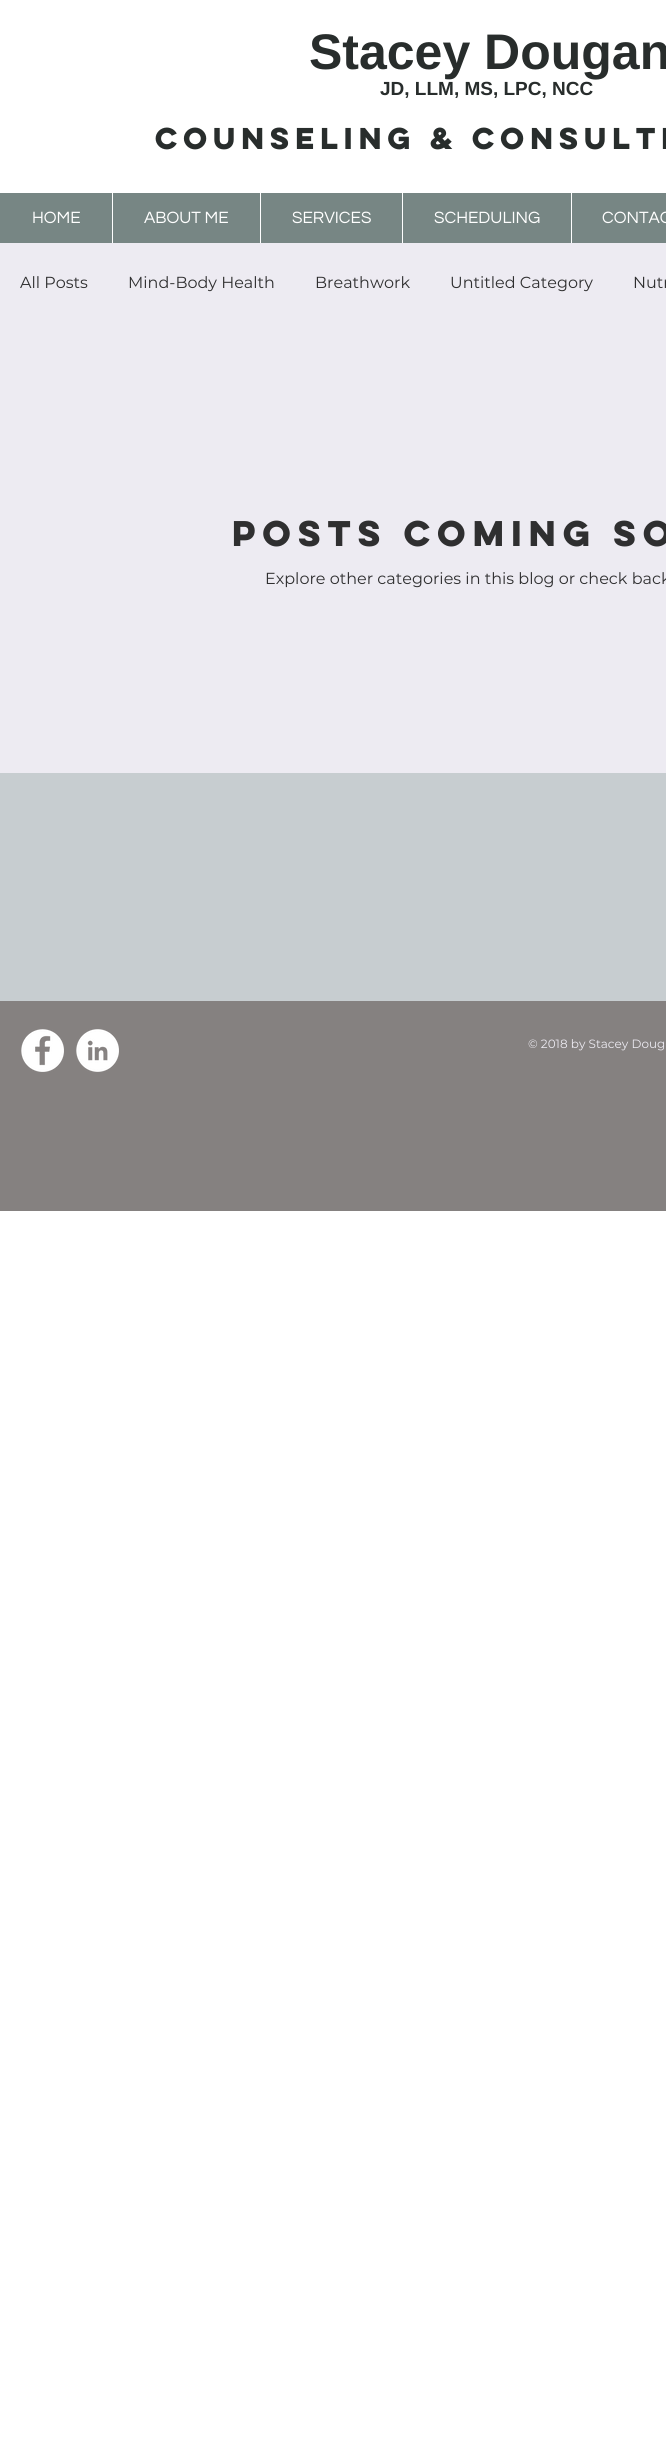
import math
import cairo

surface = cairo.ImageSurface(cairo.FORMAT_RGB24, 666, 2449)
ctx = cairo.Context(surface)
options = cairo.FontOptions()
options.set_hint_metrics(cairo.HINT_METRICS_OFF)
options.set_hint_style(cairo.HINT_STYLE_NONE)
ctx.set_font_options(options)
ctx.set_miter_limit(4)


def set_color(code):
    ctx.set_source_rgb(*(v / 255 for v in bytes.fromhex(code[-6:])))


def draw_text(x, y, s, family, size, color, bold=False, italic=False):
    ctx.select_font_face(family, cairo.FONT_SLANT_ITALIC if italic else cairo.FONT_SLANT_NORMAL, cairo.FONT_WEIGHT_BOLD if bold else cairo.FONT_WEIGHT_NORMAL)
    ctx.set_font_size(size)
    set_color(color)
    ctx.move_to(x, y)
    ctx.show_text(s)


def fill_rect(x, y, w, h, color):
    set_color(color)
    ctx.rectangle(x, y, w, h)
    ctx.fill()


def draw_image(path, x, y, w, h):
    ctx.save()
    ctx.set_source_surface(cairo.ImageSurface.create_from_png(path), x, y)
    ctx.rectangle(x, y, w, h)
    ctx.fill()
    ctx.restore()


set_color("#ffffff")
ctx.paint()
draw_text(309, 69, "Stacey Dougan", "Liberation Sans", 50, "#282d2c", bold=True)
draw_text(380, 95, "JD, LLM, MS, LPC, NCC", "Liberation Sans", 19, "#282d2c", bold=True)
draw_text(155, 149, "Counseling & Consulti", "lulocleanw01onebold", 27, "#282d2c", bold=True)
fill_rect(0, 193, 666, 50, "#778684")
draw_text(32, 223, "HOME", "Questrial", 17, "#ffffff")
fill_rect(112, 193, 1, 50, "#ffffff")
draw_text(144, 223, "ABOUT ME", "Questrial", 17, "#ffffff")
fill_rect(260, 193, 1, 50, "#ffffff")
draw_text(292, 223, "SERVICES", "Questrial", 17, "#ffffff")
fill_rect(402, 193, 1, 50, "#ffffff")
draw_text(434, 223, "SCHEDULING", "Questrial", 17, "#ffffff")
fill_rect(571, 193, 1, 50, "#ffffff")
draw_text(602, 223, "CONTAC", "Questrial", 17, "#ffffff")
fill_rect(0, 243, 666, 530, "#edebf2")
draw_text(20, 288, "All Posts", "Montserrat", 16, "#2f2f30")
draw_text(128, 288, "Mind-Body Health", "Montserrat", 16, "#2f2f30")
draw_text(315, 288, "Breathwork", "Montserrat", 16, "#2f2f30")
draw_text(450, 288, "Untitled Category", "Montserrat", 16, "#2f2f30")
draw_text(633, 288, "Nutr", "Montserrat", 16, "#2f2f30")
draw_text(232, 546, "Posts Coming So", "lulocleanw01onebold", 32, "#2f2f30", bold=True)
draw_text(265, 584, "Explore other categories in this blog or check back", "Montserrat", 16, "#2f2f30")
fill_rect(0, 773, 666, 228, "#c7cdd0")
fill_rect(0, 1001, 666, 210, "#858180")
draw_image("assets/img1.png", 21, 1029, 43, 43)
draw_image("assets/img2.png", 76, 1029, 43, 43)
draw_text(528, 1048, "© 2018 by Stacey Doug", "Montserrat", 12, "#edebf2")
surface.write_to_png("output.png")
